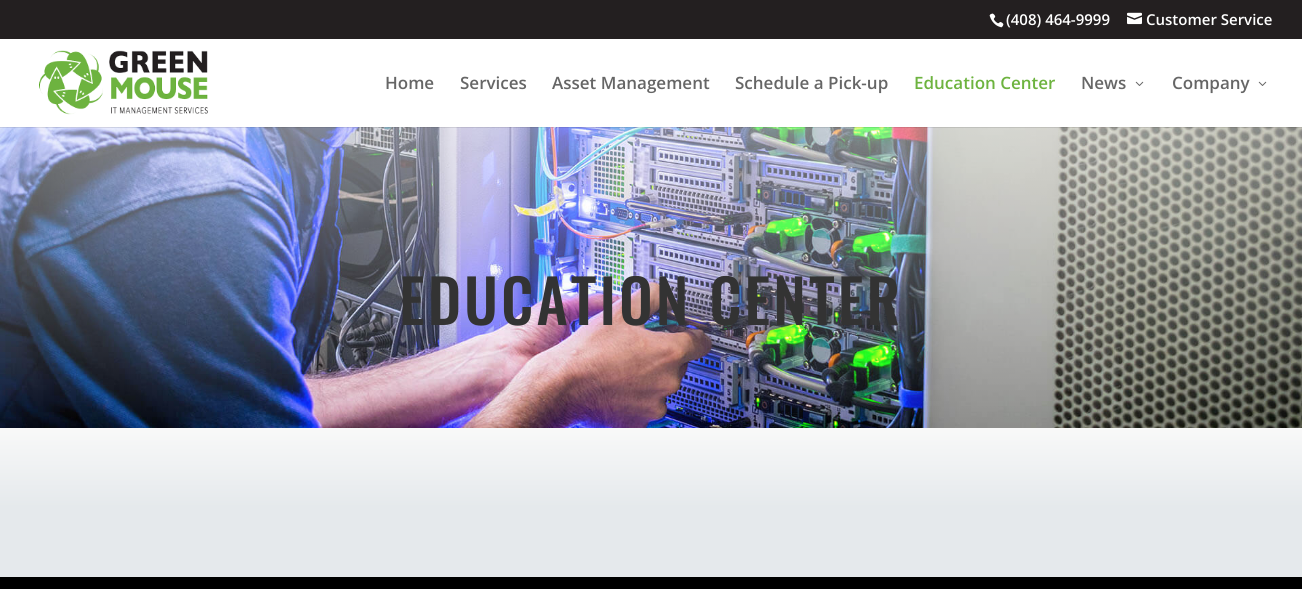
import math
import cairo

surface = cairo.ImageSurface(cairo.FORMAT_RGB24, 1302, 589)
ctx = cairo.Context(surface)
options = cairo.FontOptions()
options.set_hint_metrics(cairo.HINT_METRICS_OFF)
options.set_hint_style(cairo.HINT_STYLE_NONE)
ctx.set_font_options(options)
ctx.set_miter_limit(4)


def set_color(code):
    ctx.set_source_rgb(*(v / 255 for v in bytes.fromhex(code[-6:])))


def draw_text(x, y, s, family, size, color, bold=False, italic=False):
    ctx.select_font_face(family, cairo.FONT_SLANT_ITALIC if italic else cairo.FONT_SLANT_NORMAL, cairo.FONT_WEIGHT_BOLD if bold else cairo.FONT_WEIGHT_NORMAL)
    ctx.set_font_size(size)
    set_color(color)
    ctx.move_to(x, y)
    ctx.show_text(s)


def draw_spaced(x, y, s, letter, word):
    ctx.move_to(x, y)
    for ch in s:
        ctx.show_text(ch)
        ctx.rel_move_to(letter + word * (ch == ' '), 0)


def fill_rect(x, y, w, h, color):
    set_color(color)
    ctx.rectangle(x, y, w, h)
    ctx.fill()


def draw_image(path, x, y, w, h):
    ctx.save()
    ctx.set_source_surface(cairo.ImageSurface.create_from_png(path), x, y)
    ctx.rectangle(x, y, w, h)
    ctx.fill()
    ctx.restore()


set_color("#ffffff")
ctx.paint()
fill_rect(0, 0, 1302, 39, "#231f20")
draw_image("assets/img1.png", 989, 13, 15, 15)
draw_text(1006, 25, "(408) 464-9999", "Open Sans SemiBold", 15, "#ffffff")
draw_image("assets/img2.png", 1127, 12, 15, 13)
draw_text(1146, 25, "Customer Service", "Open Sans SemiBold", 15, "#ffffff")
draw_image("assets/img5.png", 0, 127, 1302, 301)
ctx.set_source_rgba(0, 0, 0, 0.1)
ctx.rectangle(0, 127, 1302, 1)
ctx.fill()
draw_image("assets/img3.png", 39, 50, 169, 65)
draw_text(385, 89, "Home", "Open Sans SemiBold", 17, "#666666")
draw_text(460, 89, "Services", "Open Sans SemiBold", 17, "#666666")
draw_text(552, 89, "Asset Management", "Open Sans SemiBold", 17, "#666666")
draw_text(735, 89, "Schedule a Pick-up", "Open Sans SemiBold", 17, "#666666")
draw_text(914, 89, "Education Center", "Open Sans SemiBold", 17, "#6db33f")
draw_text(1081, 89, "News", "Open Sans SemiBold", 17, "#666666")
draw_image("assets/img4.png", 1135, 81, 9, 5)
draw_text(1172, 89, "Company", "Open Sans SemiBold", 17, "#666666")
draw_image("assets/img4.png", 1258, 81, 9, 5)
ctx.select_font_face("Oswald Medium")
ctx.set_font_size(60)
set_color("#333333")
draw_spaced(399, 325, "EDUCATION CENTER", 3, 0)
gradient = cairo.LinearGradient(651, 428, 651, 577)
gradient.add_color_stop_rgba(0, 0.976, 0.976, 0.976, 1)
gradient.add_color_stop_rgba(0.53, 0.898, 0.914, 0.925, 1)
ctx.set_source(gradient)
ctx.rectangle(0, 428, 1302, 149)
ctx.fill()
fill_rect(0, 577, 1302, 12, "#000000")
surface.write_to_png("output.png")
